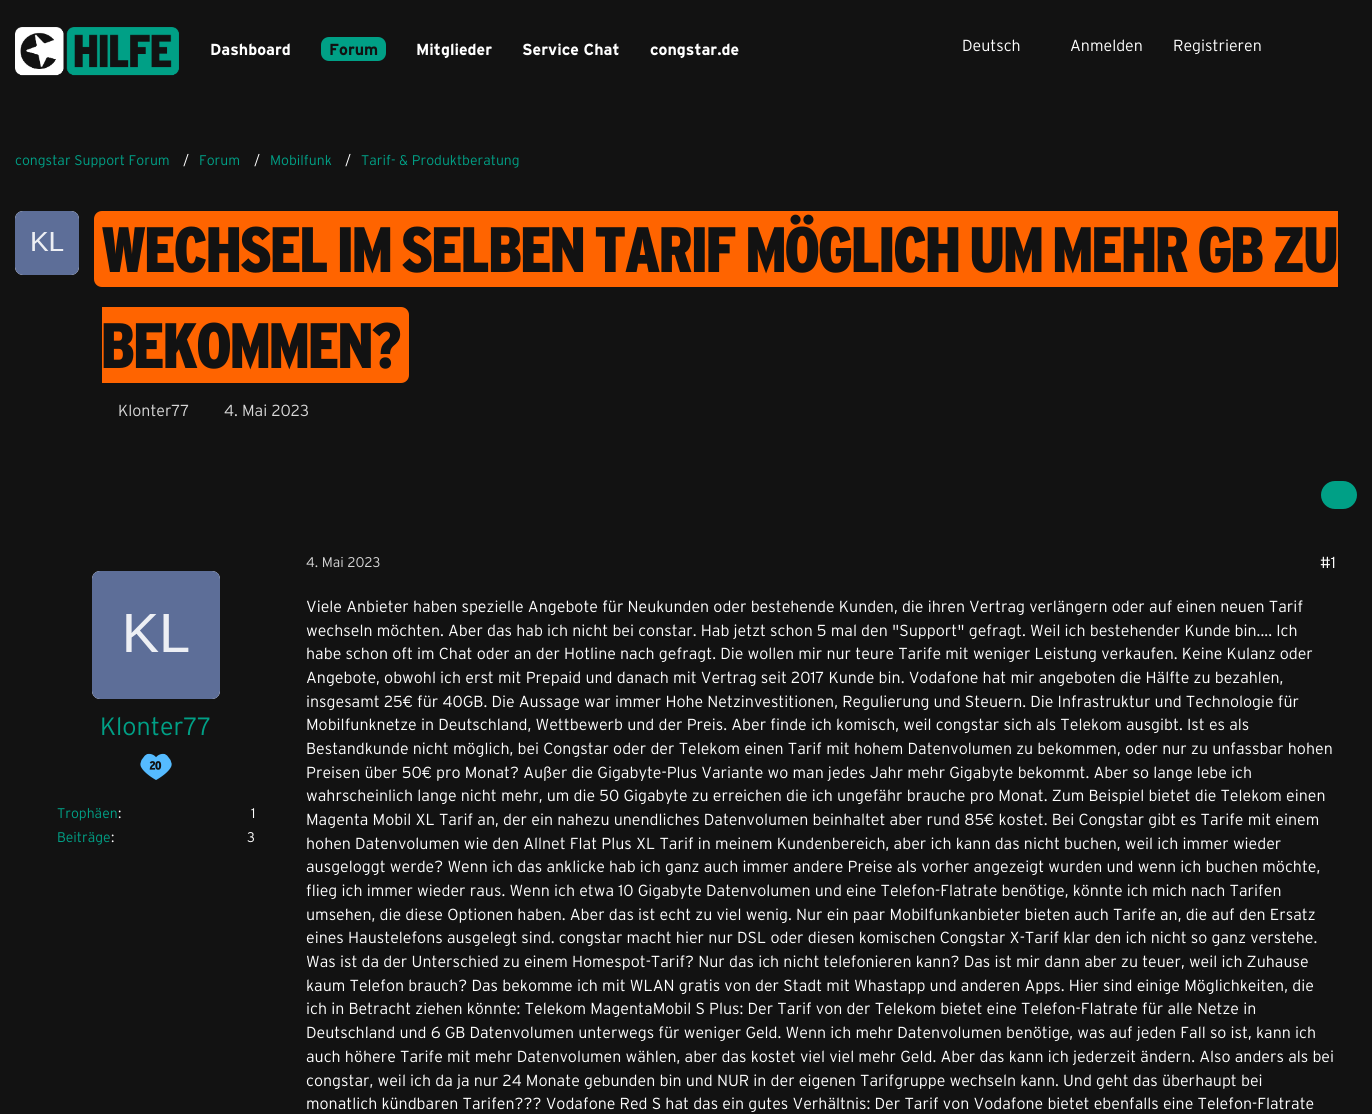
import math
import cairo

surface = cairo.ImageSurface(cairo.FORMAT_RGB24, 1372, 1114)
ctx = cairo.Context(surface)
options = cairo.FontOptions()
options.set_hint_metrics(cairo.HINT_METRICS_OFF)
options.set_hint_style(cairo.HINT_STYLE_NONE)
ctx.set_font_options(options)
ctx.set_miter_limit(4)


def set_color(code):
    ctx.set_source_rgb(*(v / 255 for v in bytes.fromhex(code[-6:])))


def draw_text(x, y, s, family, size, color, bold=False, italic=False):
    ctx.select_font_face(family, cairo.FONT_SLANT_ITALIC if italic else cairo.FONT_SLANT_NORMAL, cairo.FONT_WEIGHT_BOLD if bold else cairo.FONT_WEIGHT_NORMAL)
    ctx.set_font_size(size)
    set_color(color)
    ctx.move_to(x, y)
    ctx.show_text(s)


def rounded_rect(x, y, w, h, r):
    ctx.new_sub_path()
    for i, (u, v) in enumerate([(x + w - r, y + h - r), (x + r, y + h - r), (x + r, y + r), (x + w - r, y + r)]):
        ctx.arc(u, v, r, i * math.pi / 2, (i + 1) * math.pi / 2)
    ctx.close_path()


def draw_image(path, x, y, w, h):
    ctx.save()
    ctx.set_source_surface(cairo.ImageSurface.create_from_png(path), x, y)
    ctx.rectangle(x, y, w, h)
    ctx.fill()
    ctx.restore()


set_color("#121212")
ctx.paint()
draw_image("assets/img1.png", 15, 27, 164, 49)
draw_text(210, 55, "Dashboard", "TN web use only", 16, "#ffffff", bold=True)
set_color("#00a086")
rounded_rect(321, 37, 65, 24, 8)
ctx.fill()
draw_text(329, 55, "Forum", "TN web use only", 16, "#121212", bold=True)
draw_text(416, 55, "Mitglieder", "TN web use only", 16, "#ffffff", bold=True)
draw_text(522, 55, "Service Chat", "TN web use only", 16, "#ffffff", bold=True)
draw_text(650, 55, "congstar.de", "TN web use only", 16, "#ffffff", bold=True)
draw_text(962, 51, "Deutsch", "TN web use only Light", 16, "#ffffff")
draw_text(1070, 51, "Anmelden", "TN web use only Light", 16, "#ffffff")
draw_text(1173, 51, "Registrieren", "TN web use only Light", 16, "#ffffff")
draw_text(15, 165, "congstar Support Forum", "TN web use only Light", 14, "#00a086")
draw_text(183, 165, "/", "TN web use only Light", 14, "#ffffff")
draw_text(199, 165, "Forum", "TN web use only Light", 14, "#00a086")
draw_text(254, 165, "/", "TN web use only Light", 14, "#ffffff")
draw_text(270, 165, "Mobilfunk", "TN web use only Light", 14, "#00a086")
draw_text(345, 165, "/", "TN web use only Light", 14, "#ffffff")
draw_text(361, 165, "Tarif- & Produktberatung", "TN web use only Light", 14, "#00a086")
set_color("#ffffff")
rounded_rect(15, 211, 64, 64, 8)
ctx.fill()
draw_image("assets/img2.png", 15, 211, 64, 64)
set_color("#ff6400")
ctx.new_path()
ctx.move_to(102, 211)
ctx.line_to(1338, 211)
ctx.line_to(1338, 287)
ctx.line_to(102, 287)
ctx.curve_to(97.5, 287, 94, 283.5, 94, 279)
ctx.line_to(94, 219)
ctx.curve_to(94, 214.5, 97.5, 211, 102, 211)
ctx.close_path()
ctx.fill()
draw_text(102, 272, "WECHSEL IM SELBEN TARIF MÖGLICH UM MEHR GB ZU", "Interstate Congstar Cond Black", 64, "#121212")
set_color("#ff6400")
ctx.new_path()
ctx.move_to(102, 307)
ctx.line_to(401, 307)
ctx.curve_to(405.5, 307, 409, 310.5, 409, 315)
ctx.line_to(409, 375)
ctx.curve_to(409, 379.5, 405.5, 383, 401, 383)
ctx.line_to(102, 383)
ctx.close_path()
ctx.fill()
draw_text(102, 368, "BEKOMMEN?", "Interstate Congstar Cond Black", 64, "#121212")
draw_text(118, 416, "Klonter77", "TN web use only Light", 16, "#d8d8d8")
draw_text(224, 416, "4. Mai 2023", "TN web use only Light", 16, "#d8d8d8")
set_color("#00a086")
rounded_rect(1321, 481, 36, 28, 14)
ctx.fill()
set_color("#ffffff")
rounded_rect(92, 571, 128, 128, 8)
ctx.fill()
draw_image("assets/img3.png", 92, 571, 128, 128)
draw_text(100, 735, "Klonter77", "TN web use only Light", 25, "#00a086")
draw_image("assets/img4.png", 140, 753, 32, 27)
draw_text(57, 818, "Trophäen", "TN web use only Light", 14, "#00a086")
draw_text(118, 818, ":", "TN web use only Light", 14, "#ffffff")
draw_text(251, 818, "1", "TN web use only Light", 14, "#ffffff")
draw_text(57, 842, "Beiträge", "TN web use only Light", 14, "#00a086")
draw_text(111, 842, ":", "TN web use only Light", 14, "#ffffff")
draw_text(247, 842, "3", "TN web use only Light", 14, "#ffffff")
draw_text(306, 567, "4. Mai 2023", "TN web use only Light", 14, "#d8d8d8")
draw_text(1320, 568, "#1", "TN web use only Light", 16, "#ffffff")
draw_text(306, 612, "Viele Anbieter haben spezielle Angebote für Neukunden oder bestehende Kunden, die ihren Vertrag verlängern oder auf einen neuen Tarif", "TN web use only Light", 16, "#ffffff")
draw_text(306, 636, "wechseln möchten. Aber das hab ich nicht bei constar. Hab jetzt schon 5 mal den \"Support\" gefragt. Weil ich bestehender Kunde bin.... Ich", "TN web use only Light", 16, "#ffffff")
draw_text(306, 659, "habe schon oft im Chat oder an der Hotline nach gefragt. Die wollen mir nur teure Tarife mit weniger Leistung verkaufen. Keine Kulanz oder", "TN web use only Light", 16, "#ffffff")
draw_text(306, 683, "Angebote, obwohl ich erst mit Prepaid und danach mit Vertrag seit 2017 Kunde bin. Vodafone hat mir angeboten die Hälfte zu bezahlen,", "TN web use only Light", 16, "#ffffff")
draw_text(306, 707, "insgesamt 25€ für 40GB. Die Aussage war immer Hohe Netzinvestitionen, Regulierung und Steuern. Die Infrastruktur und Technologie für", "TN web use only Light", 16, "#ffffff")
draw_text(306, 730, "Mobilfunknetze in Deutschland, Wettbewerb und der Preis. Aber finde ich komisch, weil congstar sich als Telekom ausgibt. Ist es als", "TN web use only Light", 16, "#ffffff")
draw_text(306, 754, "Bestandkunde nicht möglich, bei Congstar oder der Telekom einen Tarif mit hohem Datenvolumen zu bekommen, oder nur zu unfassbar hohen", "TN web use only Light", 16, "#ffffff")
draw_text(306, 778, "Preisen über 50€ pro Monat? Außer die Gigabyte-Plus Variante wo man jedes Jahr mehr Gigabyte bekommt. Aber so lange lebe ich", "TN web use only Light", 16, "#ffffff")
draw_text(306, 801, "wahrscheinlich lange nicht mehr, um die 50 Gigabyte zu erreichen die ich ungefähr brauche pro Monat. Zum Beispiel bietet die Telekom einen", "TN web use only Light", 16, "#ffffff")
draw_text(306, 825, "Magenta Mobil XL Tarif an, der ein nahezu unendliches Datenvolumen beinhaltet aber rund 85€ kostet. Bei Congstar gibt es Tarife mit einem", "TN web use only Light", 16, "#ffffff")
draw_text(306, 849, "hohen Datenvolumen wie den Allnet Flat Plus XL Tarif in meinem Kundenbereich, aber ich kann das nicht buchen, weil ich immer wieder", "TN web use only Light", 16, "#ffffff")
draw_text(306, 872, "ausgeloggt werde? Wenn ich das anklicke hab ich ganz auch immer andere Preise als vorher angezeigt wurden und wenn ich buchen möchte,", "TN web use only Light", 16, "#ffffff")
draw_text(306, 896, "flieg ich immer wieder raus. Wenn ich etwa 10 Gigabyte Datenvolumen und eine Telefon-Flatrate benötige, könnte ich mich nach Tarifen", "TN web use only Light", 16, "#ffffff")
draw_text(306, 920, "umsehen, die diese Optionen haben. Aber das ist echt zu viel wenig. Nur ein paar Mobilfunkanbieter bieten auch Tarife an, die auf den Ersatz", "TN web use only Light", 16, "#ffffff")
draw_text(306, 943, "eines Haustelefons ausgelegt sind. congstar macht hier nur DSL oder diesen komischen Congstar X-Tarif klar den ich nicht so ganz verstehe.", "TN web use only Light", 16, "#ffffff")
draw_text(306, 967, "Was ist da der Unterschied zu einem Homespot-Tarif? Nur das ich nicht telefonieren kann? Das ist mir dann aber zu teuer, weil ich Zuhause", "TN web use only Light", 16, "#ffffff")
draw_text(306, 991, "kaum Telefon brauch? Das bekomme ich mit WLAN gratis von der Stadt mit Whastapp und anderen Apps. Hier sind einige Möglichkeiten, die", "TN web use only Light", 16, "#ffffff")
draw_text(306, 1014, "ich in Betracht ziehen könnte: Telekom MagentaMobil S Plus: Der Tarif von der Telekom bietet eine Telefon-Flatrate für alle Netze in", "TN web use only Light", 16, "#ffffff")
draw_text(306, 1038, "Deutschland und 6 GB Datenvolumen unterwegs für weniger Geld. Wenn ich mehr Datenvolumen benötige, was auf jeden Fall so ist, kann ich", "TN web use only Light", 16, "#ffffff")
draw_text(306, 1062, "auch höhere Tarife mit mehr Datenvolumen wählen, aber das kostet viel viel mehr Geld. Aber das kann ich jederzeit ändern. Also anders als bei", "TN web use only Light", 16, "#ffffff")
draw_text(306, 1086, "congstar, weil ich da ja nur 24 Monate gebunden bin und NUR in der eigenen Tarifgruppe wechseln kann. Und geht das überhaupt bei", "TN web use only Light", 16, "#ffffff")
draw_text(306, 1109, "monatlich kündbaren Tarifen??? Vodafone Red S hat das ein gutes Verhältnis: Der Tarif von Vodafone bietet ebenfalls eine Telefon-Flatrate", "TN web use only Light", 16, "#ffffff")
surface.write_to_png("output.png")
